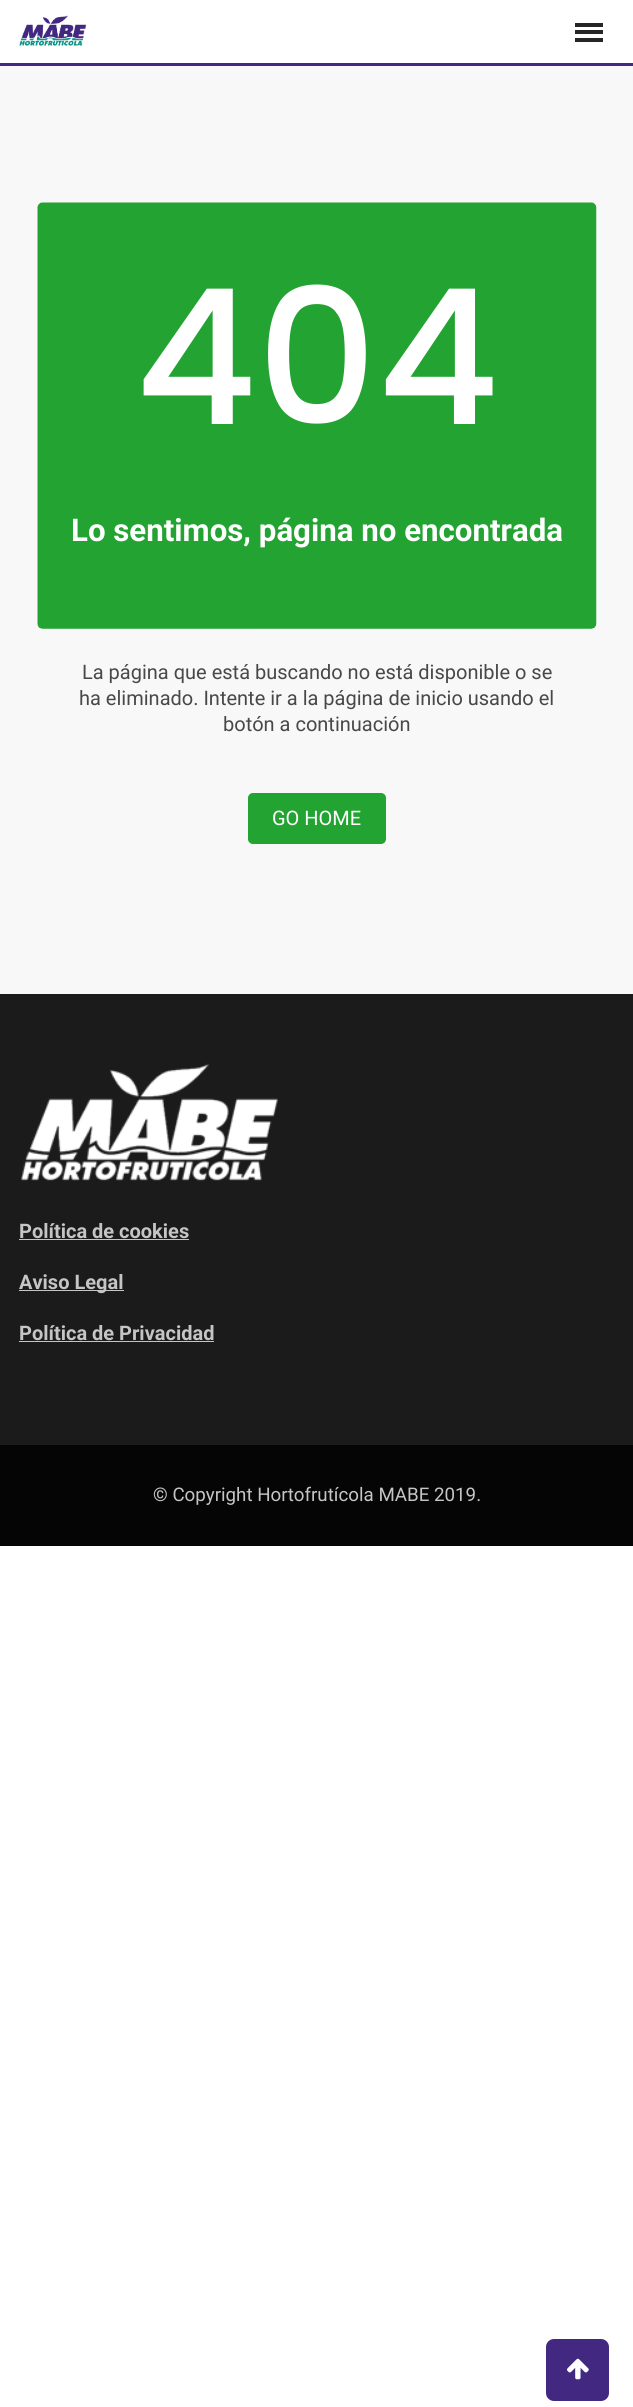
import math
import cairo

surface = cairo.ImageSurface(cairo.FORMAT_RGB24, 633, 2407)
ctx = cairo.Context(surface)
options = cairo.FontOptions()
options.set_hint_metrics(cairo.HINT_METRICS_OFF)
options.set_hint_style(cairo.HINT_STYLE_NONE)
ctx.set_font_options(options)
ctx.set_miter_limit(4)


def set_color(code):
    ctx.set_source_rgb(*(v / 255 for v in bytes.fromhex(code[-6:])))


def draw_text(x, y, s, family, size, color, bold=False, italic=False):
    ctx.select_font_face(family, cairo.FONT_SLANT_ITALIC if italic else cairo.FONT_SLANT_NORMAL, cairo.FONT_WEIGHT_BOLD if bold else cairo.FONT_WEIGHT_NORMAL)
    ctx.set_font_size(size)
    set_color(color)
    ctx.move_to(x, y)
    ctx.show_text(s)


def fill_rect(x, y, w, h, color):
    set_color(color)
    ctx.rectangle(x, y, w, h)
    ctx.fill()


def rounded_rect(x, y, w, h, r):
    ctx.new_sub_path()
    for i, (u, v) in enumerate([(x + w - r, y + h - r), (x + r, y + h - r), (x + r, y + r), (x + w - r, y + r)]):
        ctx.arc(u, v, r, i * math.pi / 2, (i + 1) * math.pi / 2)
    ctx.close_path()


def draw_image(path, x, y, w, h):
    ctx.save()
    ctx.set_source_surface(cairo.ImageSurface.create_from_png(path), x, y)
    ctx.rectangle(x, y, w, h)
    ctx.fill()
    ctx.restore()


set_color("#ffffff")
ctx.paint()
fill_rect(0, 63, 633, 3, "#422881")
draw_image("assets/img1.png", 19, 15, 68, 31)
fill_rect(575, 23, 28, 4, "#262626")
fill_rect(575, 30, 28, 4, "#262626")
fill_rect(575, 38, 28, 4, "#262626")
fill_rect(0, 66, 633, 928, "#f8f8f8")
draw_image("assets/img2.png", 37, 202, 560, 427)
draw_text(135, 424, "404", "Poppins Medium", 188, "#ffffff")
draw_text(71, 541, "Lo sentimos, página no encontrada", "Roboto", 31.25, "#ffffff", bold=True)
draw_text(82, 679, "La página que está buscando no está disponible o se", "Roboto", 20, "#484848")
draw_text(79, 705, "ha eliminado. Intente ir a la página de inicio usando el", "Roboto", 20, "#484848")
draw_text(223, 731, "botón a continuación", "Roboto", 20, "#484848")
set_color("#23a332")
rounded_rect(248, 793, 138, 51, 5)
ctx.fill()
draw_text(272, 825, "GO HOME", "Roboto", 20, "#ffffff")
fill_rect(0, 994, 633, 451, "#1b1b1b")
draw_image("assets/img3.png", 21, 1063, 257, 118)
draw_text(19, 1238, "Política de cookies", "Roboto", 20, "#c5c5c5", bold=True)
fill_rect(19, 1239, 170, 1, "#c5c5c5")
fill_rect(19, 1290, 105, 1, "#c5c5c5")
draw_text(19, 1289, "Aviso Legal", "Roboto", 20, "#c5c5c5", bold=True)
draw_text(19, 1340, "Política de Privacidad", "Roboto", 20, "#c5c5c5", bold=True)
fill_rect(19, 1341, 195, 1, "#c5c5c5")
fill_rect(0, 1445, 633, 101, "#050505")
draw_text(153, 1501, "© Copyright Hortofrutícola MABE 2019.", "Roboto", 18.75, "#c5c5c5")
set_color("#422881")
rounded_rect(546, 2339, 63, 62, 8)
ctx.fill()
draw_image("assets/img4.png", 567, 2358, 22, 22)
surface.write_to_png("output.png")
